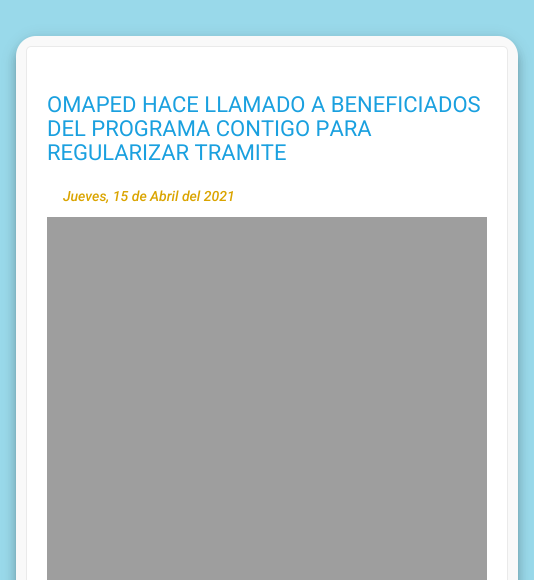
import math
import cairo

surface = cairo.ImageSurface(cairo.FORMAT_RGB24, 534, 580)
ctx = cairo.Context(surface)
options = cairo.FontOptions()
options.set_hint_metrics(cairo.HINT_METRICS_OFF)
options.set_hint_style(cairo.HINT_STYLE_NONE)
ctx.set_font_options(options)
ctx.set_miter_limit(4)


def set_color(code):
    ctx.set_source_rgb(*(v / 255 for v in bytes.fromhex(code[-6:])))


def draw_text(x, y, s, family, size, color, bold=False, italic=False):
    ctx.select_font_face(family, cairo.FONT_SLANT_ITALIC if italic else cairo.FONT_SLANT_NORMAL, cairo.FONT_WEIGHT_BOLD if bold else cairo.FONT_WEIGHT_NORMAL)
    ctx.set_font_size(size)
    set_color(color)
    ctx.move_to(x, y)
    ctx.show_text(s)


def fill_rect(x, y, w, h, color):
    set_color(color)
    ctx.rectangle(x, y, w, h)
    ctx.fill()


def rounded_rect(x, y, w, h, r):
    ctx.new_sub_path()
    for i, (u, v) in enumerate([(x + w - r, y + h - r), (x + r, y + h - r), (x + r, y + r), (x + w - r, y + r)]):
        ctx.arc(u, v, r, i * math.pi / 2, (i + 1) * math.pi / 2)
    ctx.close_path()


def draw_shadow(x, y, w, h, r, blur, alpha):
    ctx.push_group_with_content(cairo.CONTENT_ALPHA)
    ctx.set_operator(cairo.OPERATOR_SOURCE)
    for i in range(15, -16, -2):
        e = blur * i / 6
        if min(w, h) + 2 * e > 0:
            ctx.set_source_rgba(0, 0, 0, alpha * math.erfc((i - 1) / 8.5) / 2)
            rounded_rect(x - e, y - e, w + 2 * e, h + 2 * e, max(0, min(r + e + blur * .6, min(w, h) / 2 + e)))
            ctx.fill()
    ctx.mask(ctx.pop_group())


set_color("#99d9ea")
ctx.paint()
set_color("#000000")
draw_shadow(19, 44, 496, 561, 17, 2.5, 0.3)
draw_shadow(14, 37, 506, 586, 22, 7, 0.12)
draw_shadow(15, 43, 504, 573, 21, 5, 0.14)
set_color("#f9f9f9")
ctx.new_path()
ctx.move_to(36, 36)
ctx.line_to(498, 36)
ctx.curve_to(509, 36, 518, 45, 518, 56)
ctx.line_to(518, 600)
ctx.line_to(16, 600)
ctx.line_to(16, 56)
ctx.curve_to(16, 45, 25, 36, 36, 36)
ctx.close_path()
ctx.fill()
set_color("#ffffff")
rounded_rect(26.5, 46.5, 481, 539, 4.5)
ctx.fill_preserve()
set_color("#eaeaea")
ctx.set_line_width(1)
ctx.stroke()
draw_text(47, 112, "OMAPED HACE LLAMADO A BENEFICIADOS", "Roboto", 22, "#1aa0df")
draw_text(47, 136, "DEL PROGRAMA CONTIGO PARA", "Roboto", 22, "#1aa0df")
draw_text(47, 160, "REGULARIZAR TRAMITE", "Roboto", 22, "#1aa0df")
draw_text(63, 201, "Jueves, 15 de Abril del 2021", "Roboto Medium", 14, "#daa400", italic=True)
fill_rect(47, 217, 440, 363, "#9e9e9e")
surface.write_to_png("output.png")
